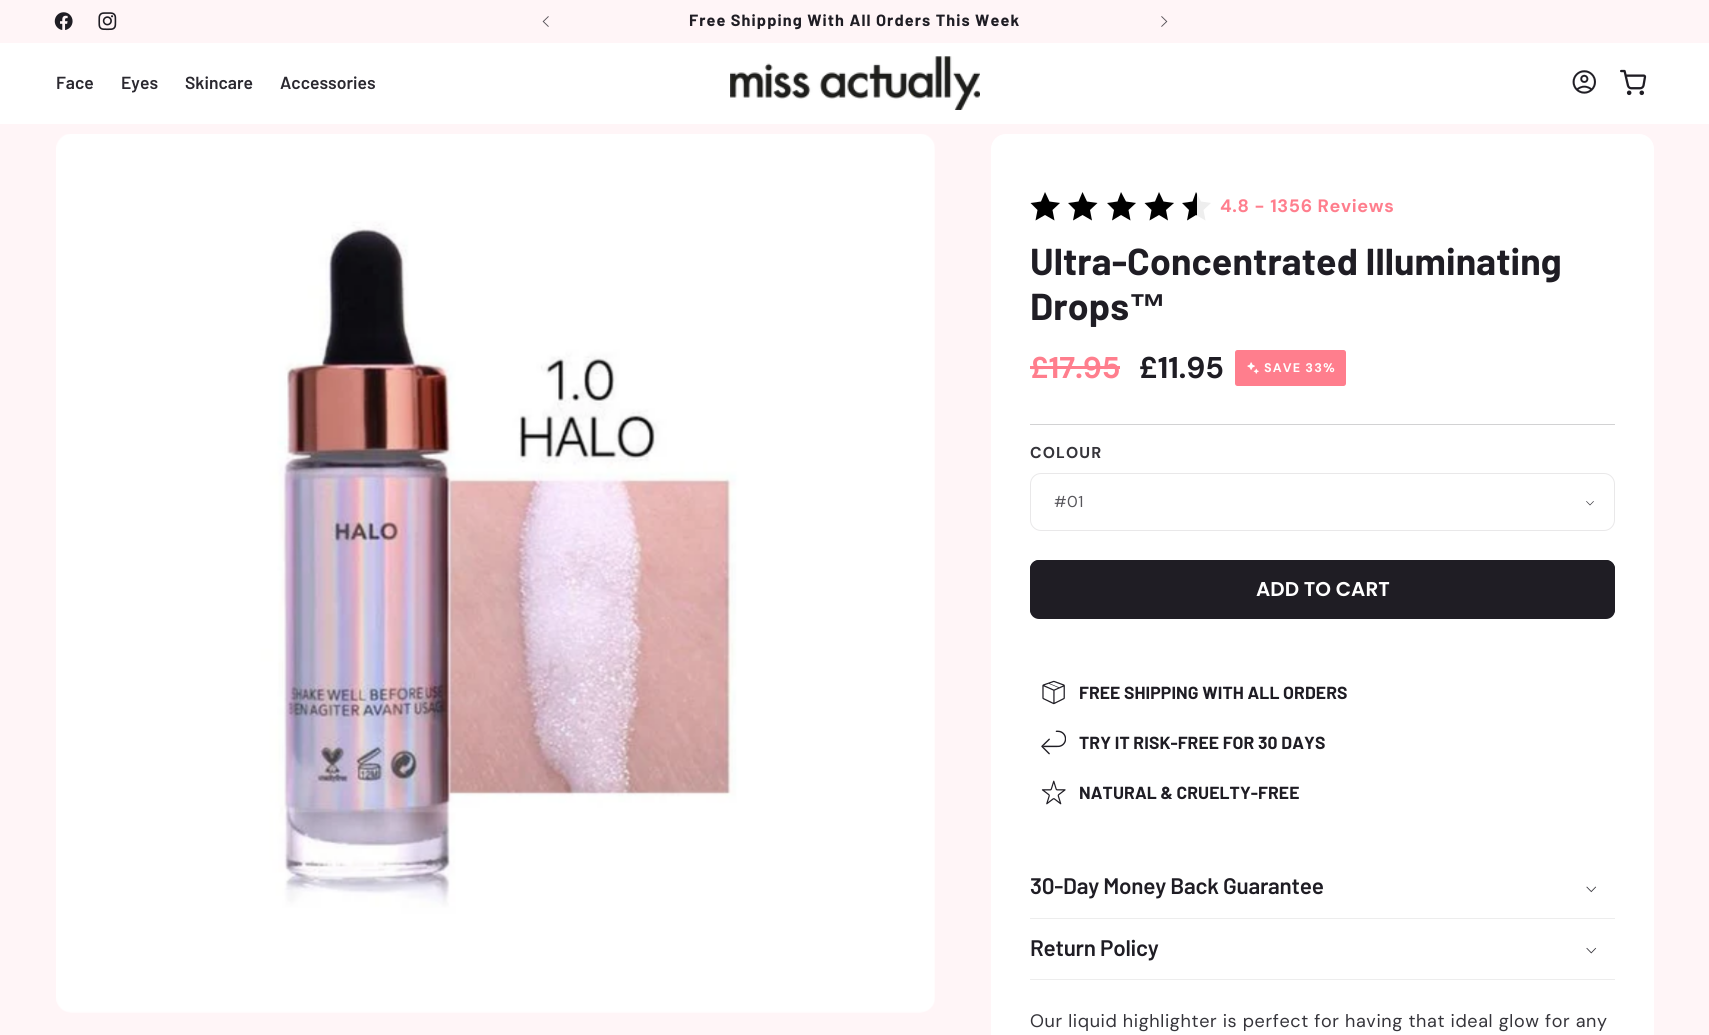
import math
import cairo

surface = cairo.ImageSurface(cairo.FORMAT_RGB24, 1709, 1035)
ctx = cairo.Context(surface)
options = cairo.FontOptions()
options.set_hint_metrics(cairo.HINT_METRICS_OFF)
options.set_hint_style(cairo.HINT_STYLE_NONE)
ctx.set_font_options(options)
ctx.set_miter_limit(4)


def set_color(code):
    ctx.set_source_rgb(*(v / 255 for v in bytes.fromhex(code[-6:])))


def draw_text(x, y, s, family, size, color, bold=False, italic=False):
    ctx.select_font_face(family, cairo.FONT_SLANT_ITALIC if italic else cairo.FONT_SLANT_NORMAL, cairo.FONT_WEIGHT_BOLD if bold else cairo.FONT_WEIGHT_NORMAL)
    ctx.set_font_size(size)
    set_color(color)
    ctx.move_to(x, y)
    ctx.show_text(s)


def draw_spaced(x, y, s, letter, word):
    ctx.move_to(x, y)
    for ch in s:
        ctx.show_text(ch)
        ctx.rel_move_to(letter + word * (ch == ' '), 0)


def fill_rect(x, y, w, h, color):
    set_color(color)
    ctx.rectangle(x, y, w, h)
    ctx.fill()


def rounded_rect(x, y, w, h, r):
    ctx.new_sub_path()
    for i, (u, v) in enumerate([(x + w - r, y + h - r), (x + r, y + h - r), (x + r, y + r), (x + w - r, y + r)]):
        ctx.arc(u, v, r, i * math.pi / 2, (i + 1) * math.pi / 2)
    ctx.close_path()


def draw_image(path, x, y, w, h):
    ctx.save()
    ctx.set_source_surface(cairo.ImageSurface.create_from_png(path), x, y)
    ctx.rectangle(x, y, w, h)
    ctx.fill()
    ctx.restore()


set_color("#fff5f7")
ctx.paint()
draw_image("assets/img1.png", 54, 12, 19, 18)
draw_image("assets/img2.png", 98, 12, 19, 19)
draw_image("assets/img3.png", 542, 16, 7, 11)
ctx.select_font_face("Barlow", cairo.FONT_SLANT_NORMAL, cairo.FONT_WEIGHT_BOLD)
ctx.set_font_size(16.25)
set_color("#1f1d24")
draw_spaced(689, 26, "Free Shipping With All Orders This Week", 1.1, 0)
draw_image("assets/img4.png", 1161, 16, 7, 11)
fill_rect(0, 43, 1709, 81, "#ffffff")
draw_text(56, 89, "Face", "Barlow SemiBold", 17.5, "#2a282f")
draw_text(121, 89, "Eyes", "Barlow SemiBold", 17.5, "#2a282f")
draw_text(185, 89, "Skincare", "Barlow SemiBold", 17.5, "#2a282f")
draw_text(280, 89, "Accessories", "Barlow SemiBold", 17.5, "#2a282f")
draw_image("assets/img5.png", 730, 56, 250, 54)
draw_image("assets/img6.png", 1572, 70, 24, 24)
draw_image("assets/img7.png", 1620, 69, 27, 27)
draw_image("assets/img8.png", 56, 134, 879, 879)
set_color("#ffffff")
rounded_rect(991.5, 134.5, 662, 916, 14.5)
ctx.fill_preserve()
ctx.set_line_width(1)
ctx.stroke()
set_color("#000000")
ctx.new_path()
ctx.move_to(1045, 192)
ctx.line_to(1049.5, 201.5)
ctx.line_to(1060, 203)
ctx.line_to(1052.5, 210)
ctx.line_to(1054.5, 220.5)
ctx.line_to(1045, 215)
ctx.line_to(1035.5, 220.5)
ctx.line_to(1037.5, 210)
ctx.line_to(1030.5, 203)
ctx.line_to(1041, 201.5)
ctx.close_path()
ctx.fill()
ctx.new_path()
ctx.move_to(1082.5, 192)
ctx.line_to(1087, 201.5)
ctx.line_to(1097.5, 203)
ctx.line_to(1090, 210)
ctx.line_to(1092, 220.5)
ctx.line_to(1082.5, 215)
ctx.line_to(1073, 220.5)
ctx.line_to(1075, 210)
ctx.line_to(1068, 203)
ctx.line_to(1078.5, 201.5)
ctx.close_path()
ctx.fill()
ctx.new_path()
ctx.move_to(1121, 192)
ctx.line_to(1126, 201.5)
ctx.line_to(1136, 203)
ctx.line_to(1128.5, 210)
ctx.line_to(1130.5, 220.5)
ctx.line_to(1121, 215)
ctx.line_to(1112, 220.5)
ctx.line_to(1114, 210)
ctx.line_to(1107, 203)
ctx.line_to(1117.5, 201.5)
ctx.close_path()
ctx.fill()
ctx.new_path()
ctx.move_to(1159, 192)
ctx.line_to(1163.5, 201.5)
ctx.line_to(1174, 203)
ctx.line_to(1166, 210)
ctx.line_to(1168, 220.5)
ctx.line_to(1159, 215)
ctx.line_to(1149.5, 220.5)
ctx.line_to(1151.5, 210)
ctx.line_to(1144.5, 203)
ctx.line_to(1155, 201.5)
ctx.close_path()
ctx.fill()
gradient = cairo.LinearGradient(1182, 192, 1211, 192)
gradient.add_color_stop_rgba(0.5, 0, 0, 0, 1)
gradient.add_color_stop_rgba(0.5, 0.933, 0.933, 0.933, 1)
ctx.set_source(gradient)
ctx.new_path()
ctx.move_to(1196, 192)
ctx.line_to(1201, 201.5)
ctx.line_to(1211, 203)
ctx.line_to(1203.5, 210)
ctx.line_to(1205.5, 220.5)
ctx.line_to(1196, 215)
ctx.line_to(1187, 220.5)
ctx.line_to(1189, 210)
ctx.line_to(1182, 203)
ctx.line_to(1192.5, 201.5)
ctx.close_path()
ctx.fill()
ctx.select_font_face("DM Sans", cairo.FONT_SLANT_NORMAL, cairo.FONT_WEIGHT_BOLD)
ctx.set_font_size(18)
set_color("#ff7e8d")
draw_spaced(1220, 212, "4.8 - 1356 Reviews", 0.62, 0)
ctx.select_font_face("Barlow", cairo.FONT_SLANT_NORMAL, cairo.FONT_WEIGHT_BOLD)
ctx.set_font_size(37.5)
set_color("#1f1d24")
draw_spaced(1030, 275, "Ultra-Concentrated Illuminating", 0.1, 0)
draw_spaced(1030, 320, "Drops", 0.1, 0)
ctx.select_font_face("Liberation Sans", cairo.FONT_SLANT_NORMAL, cairo.FONT_WEIGHT_BOLD)
draw_spaced(1129, 320, "™", 0.1, 0)
draw_text(1030, 378, "£17.95", "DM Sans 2", 30, "#ff7e8d", bold=True)
fill_rect(1030, 366, 90, 3, "#ff7e8d")
draw_text(1139, 378, "£11.95", "DM Sans 2", 30, "#1f1d24", bold=True)
set_color("#ff7e8d")
rounded_rect(1235, 350, 111, 36, 2.5)
ctx.fill()
draw_image("assets/img9.png", 1247, 362, 12, 12)
ctx.select_font_face("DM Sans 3", cairo.FONT_SLANT_NORMAL, cairo.FONT_WEIGHT_BOLD)
ctx.set_font_size(12.5)
set_color("#ffffff")
draw_spaced(1264, 372, "SAVE 33%", 1.1, 0)
fill_rect(1030, 424, 585, 1, "#d2d2d3")
ctx.select_font_face("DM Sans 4", cairo.FONT_SLANT_NORMAL, cairo.FONT_WEIGHT_BOLD)
ctx.set_font_size(15.75)
set_color("#35343a")
draw_spaced(1030, 458, "COLOUR", 1.1, 0)
draw_image("assets/img10.png", 1586, 501, 8, 5)
rounded_rect(1030.5, 473.5, 584, 57, 10.5)
set_color("#e9e8e9")
ctx.stroke()
ctx.select_font_face("DM Sans 2")
set_color("#57565b")
draw_spaced(1054, 507, "#01", 0.5, 0)
set_color("#1f1d24")
rounded_rect(1030, 560, 585, 59, 9)
ctx.fill()
rounded_rect(1030.5, 560.5, 584, 57, 8.5)
ctx.stroke()
draw_text(1256, 596, "ADD TO CART", "Poppins SemiBold", 20, "#ffffff")
draw_image("assets/img11.png", 1042, 680, 23, 25)
ctx.select_font_face("Barlow", cairo.FONT_SLANT_NORMAL, cairo.FONT_WEIGHT_BOLD)
ctx.set_font_size(17.5)
set_color("#1f1d24")
draw_spaced(1079, 699, "FREE SHIPPING WITH ALL ORDERS", 0.1, 0)
draw_image("assets/img12.png", 1041, 730, 25, 25)
draw_spaced(1079, 749, "TRY IT RISK-FREE FOR 30 DAYS", 0.1, 0)
draw_image("assets/img13.png", 1041, 780, 25, 25)
draw_spaced(1079, 799, "NATURAL & CRUELTY-FREE", 0.1, 0)
fill_rect(1030, 918, 585, 1, "#ededed")
ctx.select_font_face("Barlow SemiBold")
ctx.set_font_size(22.5)
set_color("#1f1d24")
draw_spaced(1030, 894, "30-Day Money Back Guarantee", -0.25, 0)
draw_image("assets/img14.png", 1586, 886, 11, 7)
fill_rect(1030, 979, 585, 1, "#ededed")
set_color("#1f1d24")
draw_spaced(1030, 956, "Return Policy", -0.25, 0)
draw_image("assets/img15.png", 1586, 947, 11, 7)
ctx.select_font_face("DM Sans")
ctx.set_font_size(18)
set_color("#35343a")
draw_spaced(1030, 1027, "Our liquid highlighter is perfect for having that ideal glow for any", 0.62, 0)
surface.write_to_png("output.png")
